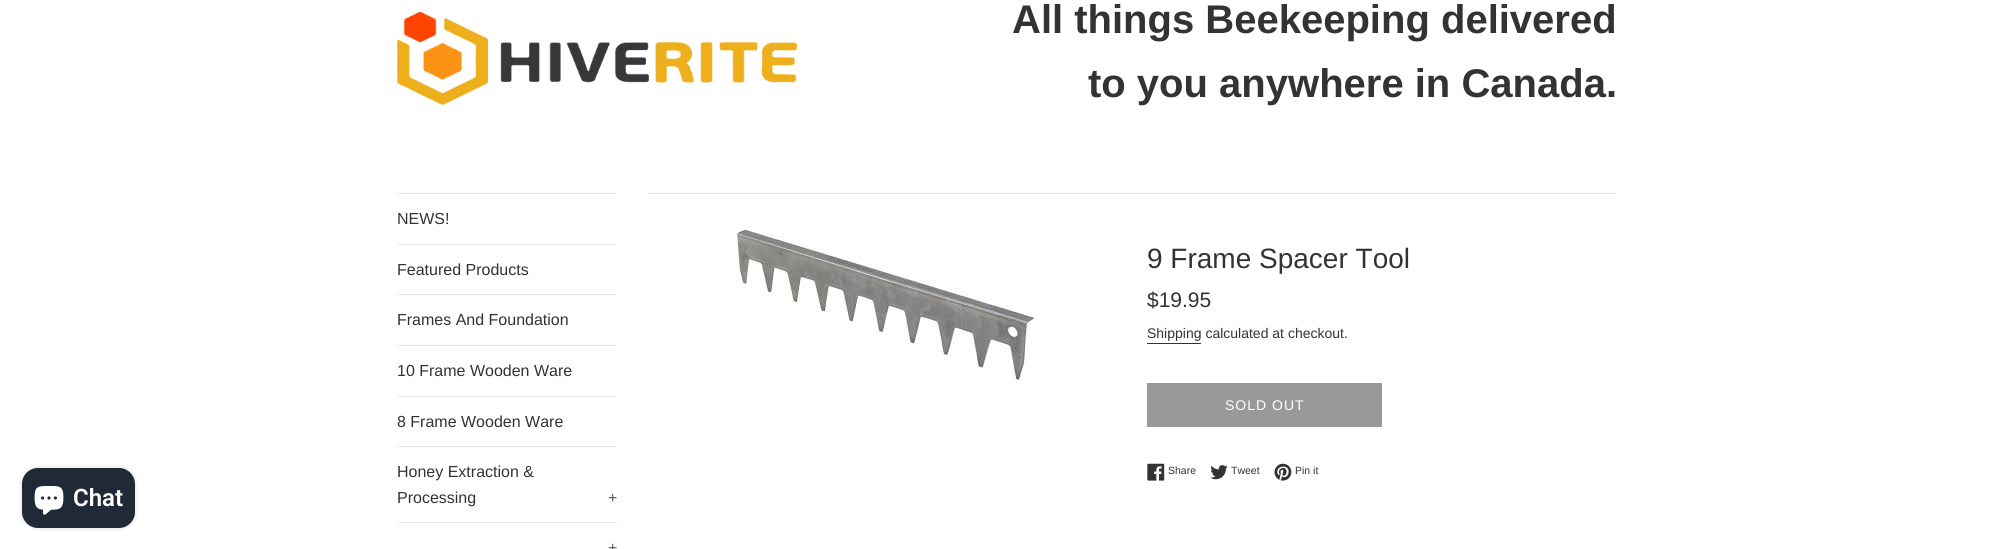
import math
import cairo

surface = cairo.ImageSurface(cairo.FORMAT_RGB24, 2014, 549)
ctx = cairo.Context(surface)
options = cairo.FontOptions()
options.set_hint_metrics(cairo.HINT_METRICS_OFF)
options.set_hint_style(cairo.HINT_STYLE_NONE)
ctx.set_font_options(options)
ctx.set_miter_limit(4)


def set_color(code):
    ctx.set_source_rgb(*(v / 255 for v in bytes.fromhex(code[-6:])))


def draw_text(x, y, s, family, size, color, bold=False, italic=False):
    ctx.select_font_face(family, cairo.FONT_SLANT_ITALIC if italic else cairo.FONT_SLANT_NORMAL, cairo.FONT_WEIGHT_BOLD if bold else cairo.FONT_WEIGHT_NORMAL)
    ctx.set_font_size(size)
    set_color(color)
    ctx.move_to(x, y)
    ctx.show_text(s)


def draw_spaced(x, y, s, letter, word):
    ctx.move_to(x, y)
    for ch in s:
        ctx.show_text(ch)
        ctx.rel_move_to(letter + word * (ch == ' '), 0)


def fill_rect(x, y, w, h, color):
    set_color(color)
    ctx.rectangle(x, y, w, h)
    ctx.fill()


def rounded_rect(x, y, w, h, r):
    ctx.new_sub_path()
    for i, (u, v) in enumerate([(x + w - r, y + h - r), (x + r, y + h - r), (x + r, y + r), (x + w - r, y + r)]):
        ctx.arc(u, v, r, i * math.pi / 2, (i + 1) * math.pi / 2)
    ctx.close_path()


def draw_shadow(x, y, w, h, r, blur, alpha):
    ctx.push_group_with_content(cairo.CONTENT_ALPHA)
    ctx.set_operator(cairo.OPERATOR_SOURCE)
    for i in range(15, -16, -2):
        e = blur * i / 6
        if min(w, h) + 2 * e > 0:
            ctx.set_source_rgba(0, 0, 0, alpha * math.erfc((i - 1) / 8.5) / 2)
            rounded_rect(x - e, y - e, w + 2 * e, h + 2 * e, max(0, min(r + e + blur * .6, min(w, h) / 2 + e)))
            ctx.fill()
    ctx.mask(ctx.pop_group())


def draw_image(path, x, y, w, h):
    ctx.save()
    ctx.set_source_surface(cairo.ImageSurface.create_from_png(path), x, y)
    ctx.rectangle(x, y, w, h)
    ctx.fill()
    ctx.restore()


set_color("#ffffff")
ctx.paint()
draw_image("assets/img1.png", 397, 11, 400, 95)
draw_text(1012, 33, "All things Beekeeping delivered", "Liberation Sans", 40, "#333333", bold=True)
draw_text(1088, 97, "to you anywhere in Canada.", "Liberation Sans", 40, "#333333", bold=True)
set_color("#000000")
draw_shadow(22, 468, 113, 60, 16, 2.5, 0.15)
set_color("#202a36")
rounded_rect(22, 468, 113, 60, 16)
ctx.fill()
draw_image("assets/img2.png", 34, 486, 30, 29)
draw_text(73, 506, "Chat", "Roboto SemiBold", 24, "#ffffff")
fill_rect(397, 193, 220, 1, "#e8e8e8")
fill_rect(397, 244, 220, 1, "#e8e8e8")
draw_text(397, 224, "NEWS!", "Liberation Sans", 16, "#333333")
fill_rect(397, 294, 220, 1, "#e8e8e8")
draw_text(397, 275, "Featured Products", "Liberation Sans", 16, "#333333")
fill_rect(397, 345, 220, 1, "#e8e8e8")
draw_text(397, 325, "Frames And Foundation", "Liberation Sans", 16, "#333333")
fill_rect(397, 396, 220, 1, "#e8e8e8")
draw_text(397, 376, "10 Frame Wooden Ware", "Liberation Sans", 16, "#333333")
fill_rect(397, 446, 220, 1, "#e8e8e8")
draw_text(397, 427, "8 Frame Wooden Ware", "Liberation Sans", 16, "#333333")
fill_rect(397, 522, 220, 1, "#e8e8e8")
draw_text(397, 477, "Honey Extraction &", "Liberation Sans", 16, "#333333")
draw_text(397, 503, "Processing", "Liberation Sans", 16, "#333333")
draw_text(608, 503, "+", "Liberation Sans", 16, "#5c5c5c")
draw_text(608, 553, "+", "Liberation Sans", 16, "#5c5c5c")
fill_rect(647, 193, 970, 1, "#e8e8e8")
draw_image("assets/img3.png", 736, 224, 299, 160)
draw_text(1147, 268, "9 Frame Spacer Tool", "Liberation Sans", 28, "#333333")
draw_text(1147, 307, "$19.95", "Liberation Sans", 21, "#333333")
draw_text(1147, 338, "Shipping calculated at checkout.", "Liberation Sans", 14, "#333333")
fill_rect(1147, 343, 54, 1, "#333333")
fill_rect(1147, 383, 235, 44, "#999999")
set_color("#ffffff")
draw_spaced(1225, 410, "SOLD OUT", 1, 0)
draw_image("assets/img4.png", 1147, 463, 18, 18)
draw_text(1168, 474, "Share", "Liberation Sans", 10.5, "#333333")
draw_image("assets/img5.png", 1210, 465, 18, 15)
draw_text(1231, 474, "Tweet", "Liberation Sans", 10.5, "#333333")
draw_image("assets/img6.png", 1274, 463, 18, 18)
draw_text(1295, 474, "Pin it", "Liberation Sans", 10.5, "#333333")
surface.write_to_png("output.png")
